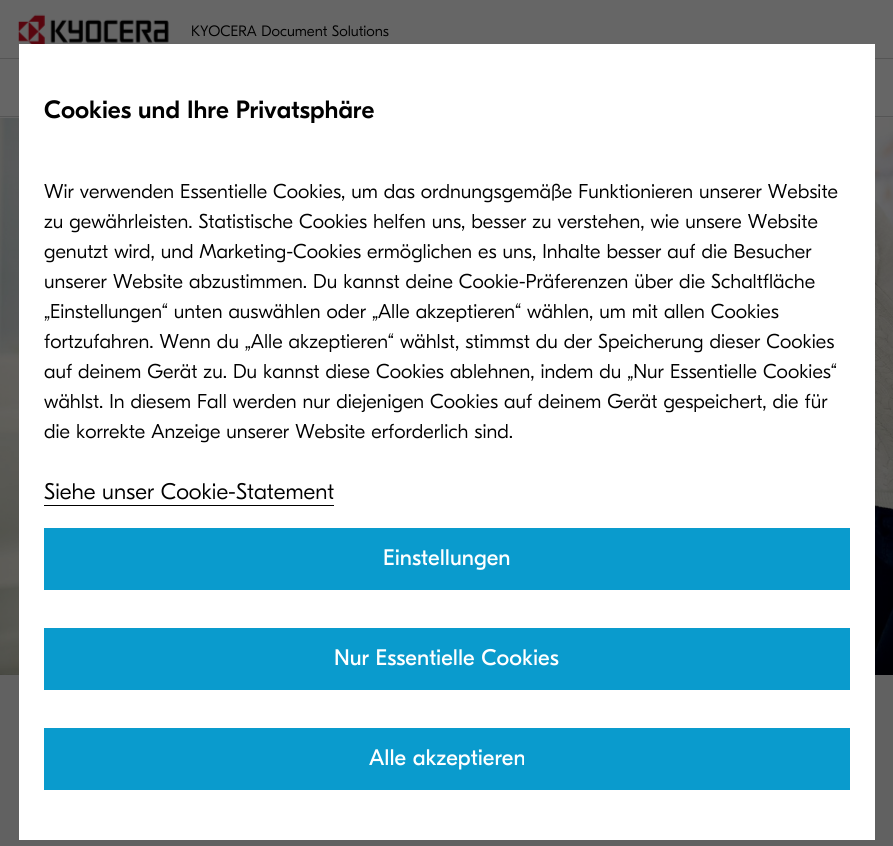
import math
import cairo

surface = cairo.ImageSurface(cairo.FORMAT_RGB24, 893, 846)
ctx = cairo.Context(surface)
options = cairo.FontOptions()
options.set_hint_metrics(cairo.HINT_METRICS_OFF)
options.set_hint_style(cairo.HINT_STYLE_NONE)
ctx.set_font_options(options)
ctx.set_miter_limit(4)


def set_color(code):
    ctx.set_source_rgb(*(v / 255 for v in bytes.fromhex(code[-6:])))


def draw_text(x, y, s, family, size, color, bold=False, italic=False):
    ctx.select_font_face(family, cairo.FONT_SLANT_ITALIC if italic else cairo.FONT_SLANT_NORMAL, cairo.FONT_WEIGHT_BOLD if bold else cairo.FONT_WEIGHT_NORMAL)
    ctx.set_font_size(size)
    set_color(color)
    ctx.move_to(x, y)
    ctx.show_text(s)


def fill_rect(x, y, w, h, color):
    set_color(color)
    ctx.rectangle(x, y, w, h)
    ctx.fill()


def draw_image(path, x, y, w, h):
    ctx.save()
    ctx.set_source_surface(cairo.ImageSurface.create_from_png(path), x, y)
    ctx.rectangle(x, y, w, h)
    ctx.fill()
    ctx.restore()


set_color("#616161")
ctx.paint()
fill_rect(0, 0, 893, 118, "#666666")
fill_rect(0, 116, 893, 1, "#555555")
fill_rect(0, 58, 893, 1, "#555555")
draw_image("assets/img1.png", 18, 14, 151, 30)
draw_text(191, 36, "KYOCERA Document Solutions", "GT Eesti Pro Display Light", 15, "#000000")
draw_image("assets/img2.png", 0, 118, 893, 557)
fill_rect(19, 44, 856, 796, "#ffffff")
draw_text(44, 118, "Cookies und Ihre Privatsphäre", "GT Eesti Pro Display Medium", 25, "#000000")
draw_text(44, 198, "Wir verwenden Essentielle Cookies, um das ordnungsgemäße Funktionieren unserer Website", "GT Eesti Pro Display Light", 20, "#000000")
draw_text(44, 228, "zu gewährleisten. Statistische Cookies helfen uns, besser zu verstehen, wie unsere Website", "GT Eesti Pro Display Light", 20, "#000000")
draw_text(44, 258, "genutzt wird, und Marketing-Cookies ermöglichen es uns, Inhalte besser auf die Besucher", "GT Eesti Pro Display Light", 20, "#000000")
draw_text(44, 288, "unserer Website abzustimmen. Du kannst deine Cookie-Präferenzen über die Schaltfläche", "GT Eesti Pro Display Light", 20, "#000000")
draw_text(44, 318, "„Einstellungen“ unten auswählen oder „Alle akzeptieren“ wählen, um mit allen Cookies", "GT Eesti Pro Display Light", 20, "#000000")
draw_text(44, 348, "fortzufahren. Wenn du „Alle akzeptieren“ wählst, stimmst du der Speicherung dieser Cookies", "GT Eesti Pro Display Light", 20, "#000000")
draw_text(44, 378, "auf deinem Gerät zu. Du kannst diese Cookies ablehnen, indem du „Nur Essentielle Cookies“", "GT Eesti Pro Display Light", 20, "#000000")
draw_text(44, 408, "wählst. In diesem Fall werden nur diejenigen Cookies auf deinem Gerät gespeichert, die für", "GT Eesti Pro Display Light", 20, "#000000")
draw_text(44, 438, "die korrekte Anzeige unserer Website erforderlich sind.", "GT Eesti Pro Display Light", 20, "#000000")
draw_text(44, 499, "Siehe unser Cookie-Statement", "GT Eesti Pro Display Light", 22.5, "#000000")
fill_rect(44, 505, 290, 1, "#000000")
fill_rect(44, 528, 806, 62, "#0a9bcd")
draw_text(383, 565, "Einstellungen", "GT Eesti Pro Display", 22.5, "#ffffff")
fill_rect(44, 628, 806, 62, "#0a9bcd")
draw_text(334, 665, "Nur Essentielle Cookies", "GT Eesti Pro Display", 22.5, "#ffffff")
fill_rect(44, 728, 806, 62, "#0a9bcd")
draw_text(369, 765, "Alle akzeptieren", "GT Eesti Pro Display", 22.5, "#ffffff")
surface.write_to_png("output.png")
